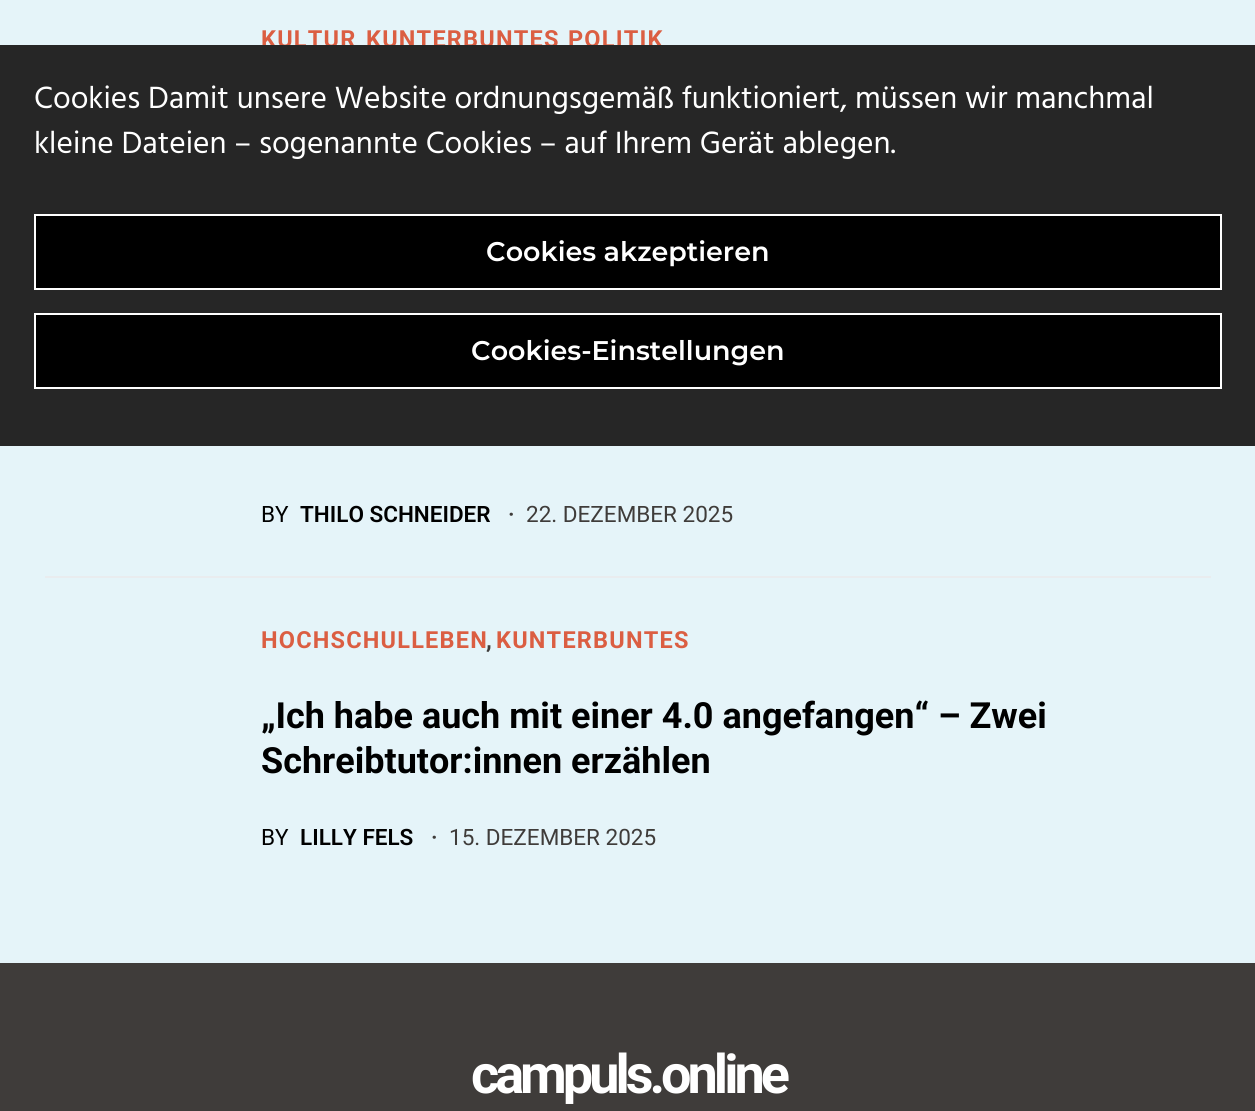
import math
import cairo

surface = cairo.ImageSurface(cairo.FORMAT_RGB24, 1255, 1111)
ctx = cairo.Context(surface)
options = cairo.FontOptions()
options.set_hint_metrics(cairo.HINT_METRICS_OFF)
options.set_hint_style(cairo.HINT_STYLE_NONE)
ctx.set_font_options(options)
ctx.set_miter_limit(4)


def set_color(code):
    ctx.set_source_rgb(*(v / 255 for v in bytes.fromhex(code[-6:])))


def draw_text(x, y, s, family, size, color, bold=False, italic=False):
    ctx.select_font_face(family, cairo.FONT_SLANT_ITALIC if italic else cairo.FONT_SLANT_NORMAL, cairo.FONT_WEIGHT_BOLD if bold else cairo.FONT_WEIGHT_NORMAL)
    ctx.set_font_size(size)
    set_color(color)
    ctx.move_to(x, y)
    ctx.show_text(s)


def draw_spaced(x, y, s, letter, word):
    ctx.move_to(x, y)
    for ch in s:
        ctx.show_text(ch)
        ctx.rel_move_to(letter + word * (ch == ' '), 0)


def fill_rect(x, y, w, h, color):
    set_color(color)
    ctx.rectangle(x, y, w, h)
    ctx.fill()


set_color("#e5f4f9")
ctx.paint()
ctx.select_font_face("Roboto", cairo.FONT_SLANT_NORMAL, cairo.FONT_WEIGHT_BOLD)
ctx.set_font_size(23.5)
set_color("#db5e42")
draw_spaced(261, 47, "KULTUR", 1.2, 0)
draw_spaced(366, 47, "KUNTERBUNTES", 1.2, 0)
draw_spaced(568, 47, "POLITIK", 1.2, 0)
draw_text(261, 522, "BY", "Roboto", 22.5, "#000000")
draw_text(300, 522, "THILO SCHNEIDER", "Roboto SemiBold", 22.5, "#000000")
draw_text(508, 522, "·", "Roboto SemiBold", 22.5, "#3f3c3a")
draw_text(526, 522, "22. DEZEMBER 2025", "Roboto", 22.5, "#3f3c3a")
fill_rect(45, 576, 1166, 2, "#e9ecef")
ctx.select_font_face("Roboto", cairo.FONT_SLANT_NORMAL, cairo.FONT_WEIGHT_BOLD)
ctx.set_font_size(23.5)
set_color("#db5e42")
draw_spaced(261, 648, "HOCHSCHULLEBEN", 1.2, 0)
set_color("#3f3c3a")
draw_spaced(486, 648, ",", 1.2, 0)
set_color("#db5e42")
draw_spaced(496, 648, "KUNTERBUNTES", 1.2, 0)
draw_text(261, 728, "„Ich habe auch mit einer 4.0 angefangen“ – Zwei", "Roboto", 36, "#000000", bold=True)
draw_text(261, 773, "Schreibtutor:innen erzählen", "Roboto", 36, "#000000", bold=True)
draw_text(261, 845, "BY", "Roboto", 22.5, "#000000")
draw_text(300, 845, "LILLY FELS", "Roboto SemiBold", 22.5, "#000000")
draw_text(431, 845, "·", "Roboto SemiBold", 22.5, "#3f3c3a")
draw_text(449, 845, "15. DEZEMBER 2025", "Roboto", 22.5, "#3f3c3a")
fill_rect(0, 963, 1255, 148, "#3f3c3a")
ctx.select_font_face("Roboto", cairo.FONT_SLANT_NORMAL, cairo.FONT_WEIGHT_BOLD)
ctx.set_font_size(54)
set_color("#ffffff")
draw_spaced(471, 1093, "campuls.online", -4, 0)
fill_rect(0, 45, 1255, 401, "#262626")
draw_text(34, 108, "Cookies Damit unsere Website ordnungsgemäß funktioniert, müssen wir manchmal", "Hind", 31.5, "#ffffff")
draw_text(34, 153, "kleine Dateien – sogenannte Cookies – auf Ihrem Gerät ablegen.", "Hind", 31.5, "#ffffff")
set_color("#000000")
ctx.rectangle(35, 215, 1186, 74)
ctx.fill_preserve()
set_color("#ffffff")
ctx.stroke()
draw_text(486, 261, "Cookies akzeptieren", "Montserrat SemiBold", 27, "#ffffff")
set_color("#000000")
ctx.rectangle(35, 314, 1186, 74)
ctx.fill_preserve()
set_color("#ffffff")
ctx.stroke()
draw_text(471, 360, "Cookies-Einstellungen", "Montserrat SemiBold", 27, "#ffffff")
surface.write_to_png("output.png")
